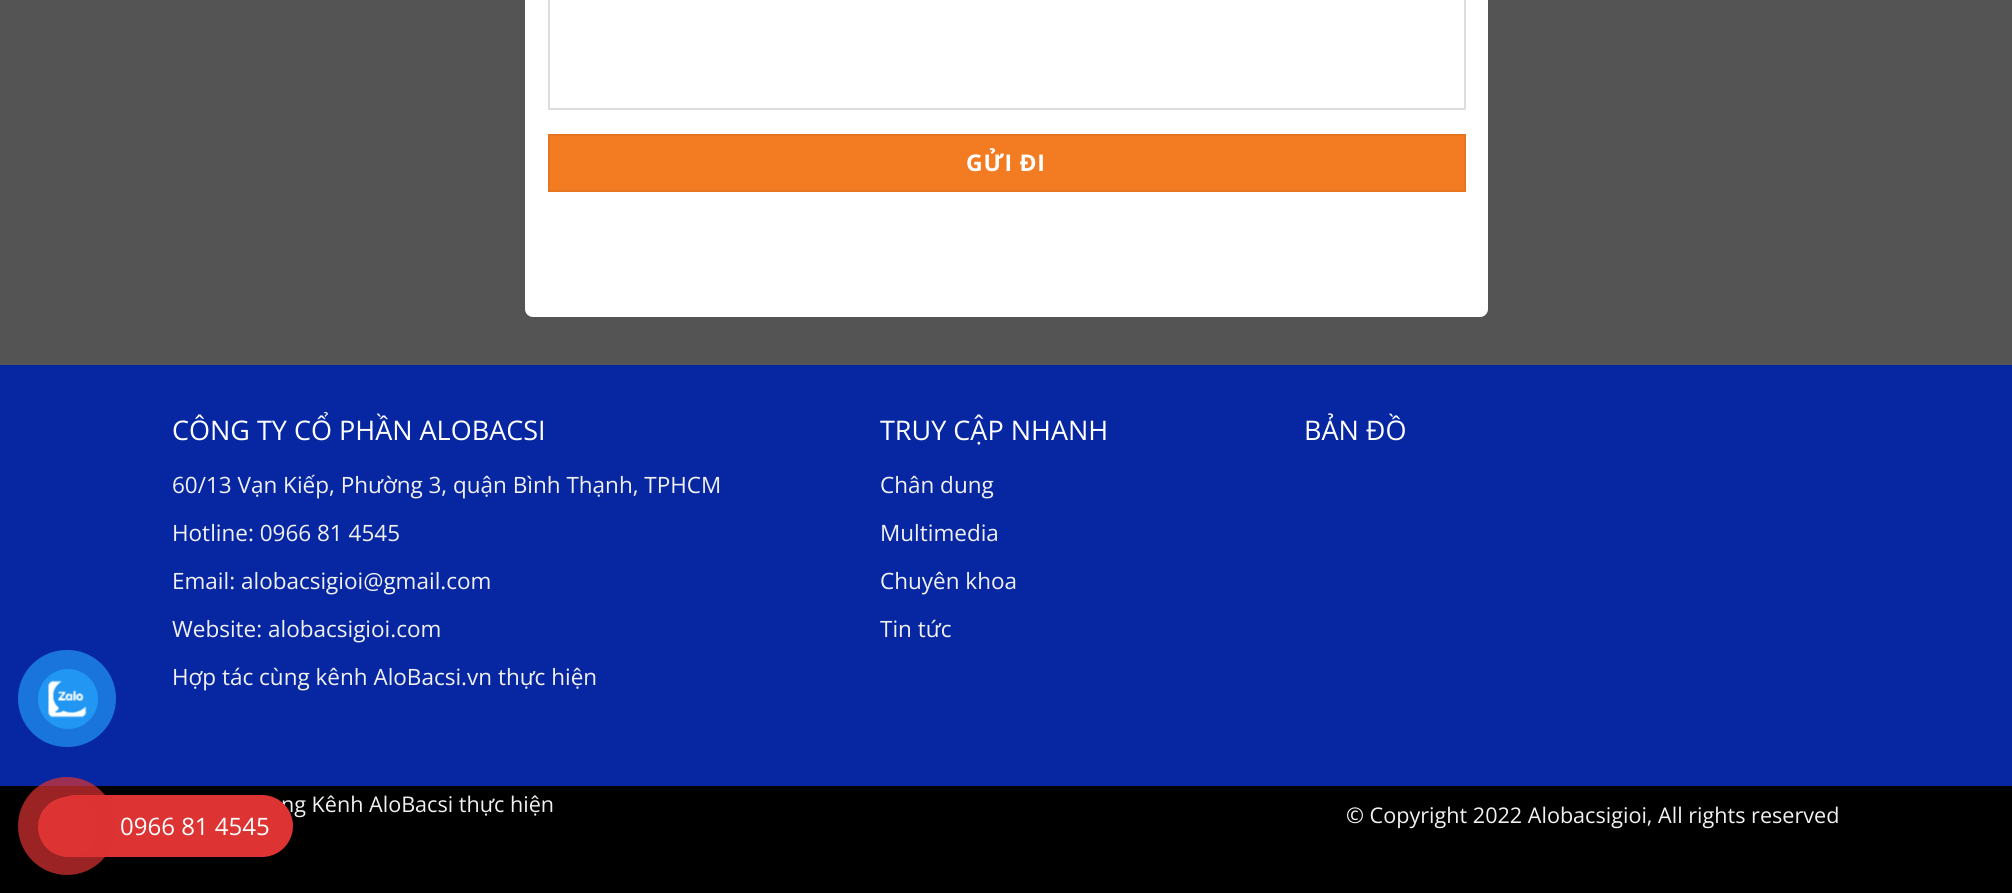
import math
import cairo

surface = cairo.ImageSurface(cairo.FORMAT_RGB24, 2012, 893)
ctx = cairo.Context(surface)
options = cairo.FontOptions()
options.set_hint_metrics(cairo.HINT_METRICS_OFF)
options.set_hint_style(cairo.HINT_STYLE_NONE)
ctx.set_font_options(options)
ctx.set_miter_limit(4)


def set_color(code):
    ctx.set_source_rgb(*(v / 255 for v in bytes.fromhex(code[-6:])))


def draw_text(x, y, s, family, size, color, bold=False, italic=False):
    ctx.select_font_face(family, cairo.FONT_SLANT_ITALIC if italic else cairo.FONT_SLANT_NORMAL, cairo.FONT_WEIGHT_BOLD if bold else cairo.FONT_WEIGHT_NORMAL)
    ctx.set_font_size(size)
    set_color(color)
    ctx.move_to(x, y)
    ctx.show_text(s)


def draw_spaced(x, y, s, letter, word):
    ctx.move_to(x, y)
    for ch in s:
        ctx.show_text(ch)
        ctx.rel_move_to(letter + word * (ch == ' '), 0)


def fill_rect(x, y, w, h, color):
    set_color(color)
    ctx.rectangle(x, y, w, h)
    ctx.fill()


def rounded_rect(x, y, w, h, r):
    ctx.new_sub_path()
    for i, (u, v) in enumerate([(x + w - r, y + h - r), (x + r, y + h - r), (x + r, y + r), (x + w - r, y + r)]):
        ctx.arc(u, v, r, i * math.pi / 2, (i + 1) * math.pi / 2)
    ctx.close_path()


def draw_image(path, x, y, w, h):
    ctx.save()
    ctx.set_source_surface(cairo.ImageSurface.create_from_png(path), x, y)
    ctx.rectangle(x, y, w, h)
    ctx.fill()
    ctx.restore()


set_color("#000000")
ctx.paint()
fill_rect(0, 0, 2012, 365, "#545454")
set_color("#ffffff")
rounded_rect(525, -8, 963, 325, 8)
ctx.fill()
ctx.rectangle(549, -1, 916, 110)
set_color("#dddddd")
ctx.stroke()
set_color("#f37b22")
ctx.rectangle(549, 135, 916, 56)
ctx.fill_preserve()
set_color("#e77520")
ctx.stroke()
ctx.select_font_face("Open Sans", cairo.FONT_SLANT_NORMAL, cairo.FONT_WEIGHT_BOLD)
ctx.set_font_size(23)
set_color("#ffffff")
draw_spaced(966, 171, "GỬI ĐI", 0.75, 0)
fill_rect(0, 365, 2012, 421, "#0727a2")
draw_text(172, 440, "CÔNG TY CỔ PHẦN ALOBACSI", "Open Sans", 27, "#ffffff")
draw_text(172, 493, "60/13 Vạn Kiếp, Phường 3, quận Bình Thạnh, TPHCM", "Open Sans", 22.5, "#f1f1f1")
draw_text(172, 541, "Hotline: 0966 81 4545", "Open Sans", 22.5, "#f1f1f1")
draw_text(172, 589, "Email: alobacsigioi@gmail.com", "Open Sans", 22.5, "#f1f1f1")
draw_text(172, 637, "Website: alobacsigioi.com", "Open Sans", 22.5, "#f1f1f1")
draw_text(172, 685, "Hợp tác cùng kênh AloBacsi.vn thực hiện", "Open Sans", 22.5, "#f1f1f1")
draw_text(880, 440, "TRUY CẬP NHANH", "Open Sans", 27, "#ffffff")
draw_text(880, 493, "Chân dung", "Open Sans", 22.5, "#f1f1f1")
draw_text(880, 541, "Multimedia", "Open Sans", 22.5, "#f1f1f1")
draw_text(880, 589, "Chuyên khoa", "Open Sans", 22.5, "#f1f1f1")
draw_text(880, 637, "Tin tức", "Open Sans", 22.5, "#f1f1f1")
draw_text(1304, 440, "BẢN ĐỒ", "Open Sans", 27, "#ffffff")
draw_text(281, 812, "ng Kênh AloBacsi thực hiện", "Open Sans", 21.6, "#f1f1f1")
draw_text(1346, 823, "© Copyright 2022 Alobacsigioi, All rights reserved", "Open Sans", 21.6, "#f1f1f1")
set_color("#1975db")
rounded_rect(18, 650, 98, 97, 48.5)
ctx.fill()
set_color("#2196f3")
ctx.arc(68, 699, 30, 0, 2 * math.pi)
ctx.fill()
draw_image("assets/img1.png", 48, 680, 39, 38)
set_color("#dd3333")
rounded_rect(45, 795, 248, 62, 31)
ctx.fill()
ctx.set_source_rgba(0.867, 0.2, 0.2, 0.7)
ctx.arc(67, 826, 49, 0, 2 * math.pi)
ctx.fill()
set_color("#dd3333")
ctx.arc(68, 827, 30, 0, 2 * math.pi)
ctx.fill()
draw_text(120, 835, "0966 81 4545", "Open Sans", 24, "#ffffff")
surface.write_to_png("output.png")
